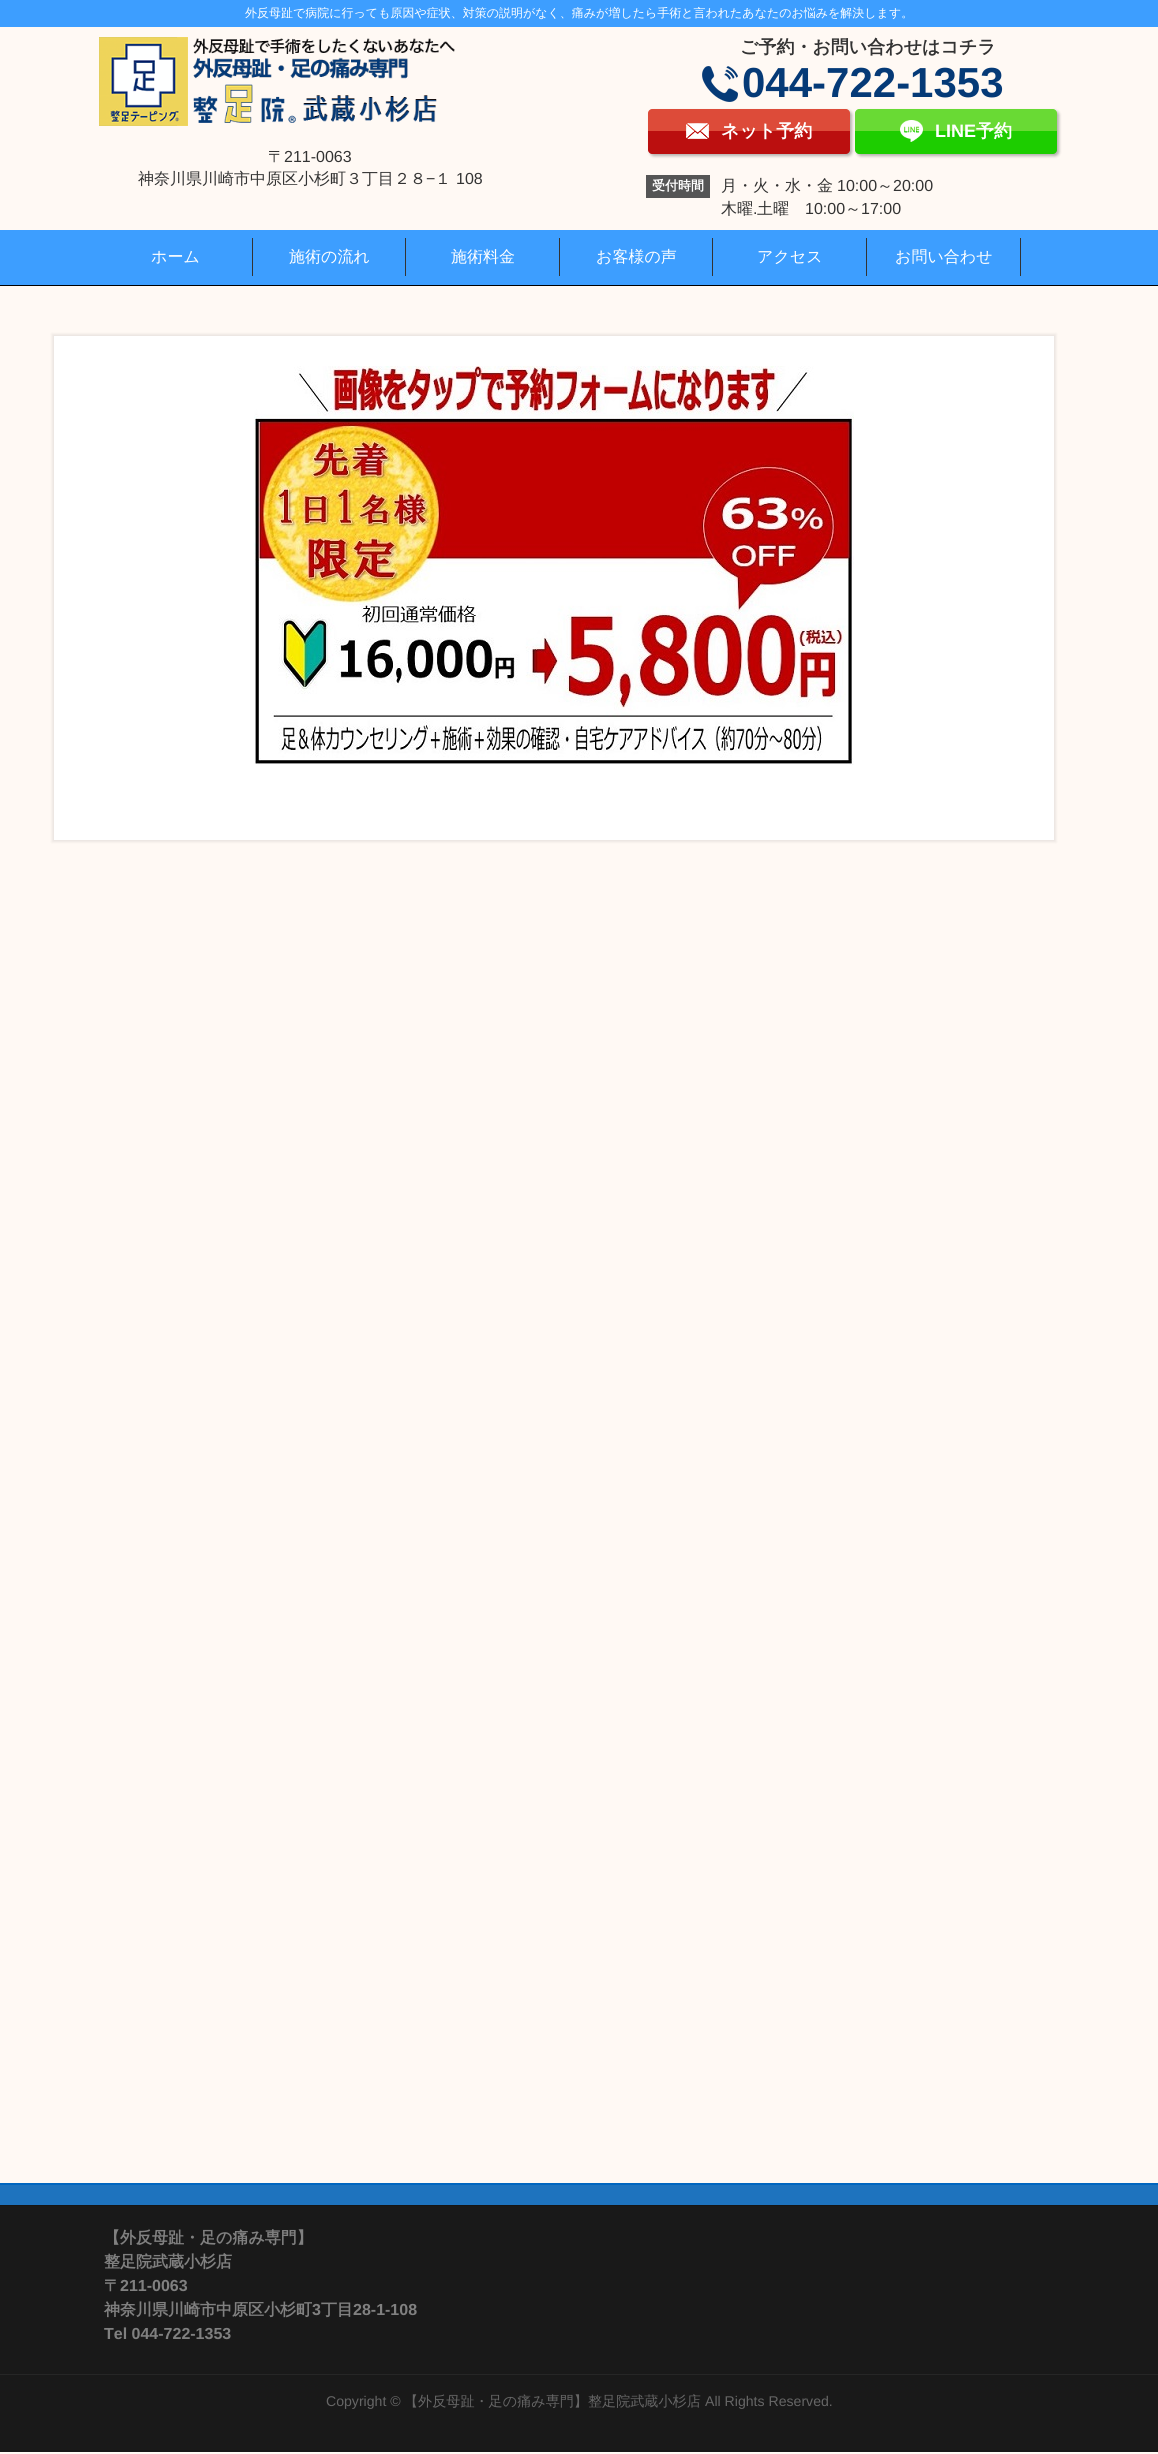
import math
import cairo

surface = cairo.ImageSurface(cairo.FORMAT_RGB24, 1158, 2454)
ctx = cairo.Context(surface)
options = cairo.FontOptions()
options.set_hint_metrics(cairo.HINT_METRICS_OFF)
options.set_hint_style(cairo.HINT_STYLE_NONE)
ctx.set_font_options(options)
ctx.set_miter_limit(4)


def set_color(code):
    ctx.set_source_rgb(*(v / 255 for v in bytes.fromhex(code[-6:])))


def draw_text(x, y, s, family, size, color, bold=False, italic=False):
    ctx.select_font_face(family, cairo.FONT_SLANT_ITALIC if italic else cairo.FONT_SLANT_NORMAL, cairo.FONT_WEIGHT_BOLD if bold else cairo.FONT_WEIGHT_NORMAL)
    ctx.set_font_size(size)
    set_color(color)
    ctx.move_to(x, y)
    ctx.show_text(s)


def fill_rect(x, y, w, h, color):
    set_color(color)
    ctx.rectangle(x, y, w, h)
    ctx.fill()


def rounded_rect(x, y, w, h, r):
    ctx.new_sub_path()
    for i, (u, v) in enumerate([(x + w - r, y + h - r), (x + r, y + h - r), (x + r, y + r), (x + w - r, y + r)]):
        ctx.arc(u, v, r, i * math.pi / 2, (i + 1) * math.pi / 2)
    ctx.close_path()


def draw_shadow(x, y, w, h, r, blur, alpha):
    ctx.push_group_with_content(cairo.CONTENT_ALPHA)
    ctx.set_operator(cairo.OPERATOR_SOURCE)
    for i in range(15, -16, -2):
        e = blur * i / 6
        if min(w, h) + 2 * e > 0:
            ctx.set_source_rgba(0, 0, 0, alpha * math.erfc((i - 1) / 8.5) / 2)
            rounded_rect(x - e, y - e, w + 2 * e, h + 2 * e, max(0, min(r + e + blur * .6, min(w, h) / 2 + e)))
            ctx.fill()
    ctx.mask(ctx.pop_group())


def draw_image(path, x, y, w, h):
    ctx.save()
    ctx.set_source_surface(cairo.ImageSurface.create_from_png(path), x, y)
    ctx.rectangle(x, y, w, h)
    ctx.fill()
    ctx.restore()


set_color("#fff9f4")
ctx.paint()
fill_rect(0, 0, 1158, 27, "#3d9eff")
draw_text(245, 17, "外反母趾で病院に行っても原因や症状、対策の説明がなく、痛みが増したら手術と言われたあなたのお悩みを解決します。", "WenQuanYi Zen Hei Medium", 12, "#ffffff")
draw_image("assets/img1.png", 99, 37, 356, 89)
draw_text(268, 162, "〒", "WenQuanYi Zen Hei Medium", 16, "#333333")
draw_text(284, 162, "211-0063", "Liberation Sans", 16, "#333333")
draw_text(138, 184, "神奈川県川崎市中原区小杉町３丁目２８", "WenQuanYi Zen Hei Medium", 16, "#333333")
draw_text(426, 184, "−", "Liberation Sans", 16, "#333333")
draw_text(435, 184, "１", "WenQuanYi Zen Hei Medium", 16, "#333333")
draw_text(456, 184, "108", "Liberation Sans", 16, "#333333")
draw_text(740, 53, "ご予約・お問い合わせはコチラ", "WenQuanYi Zen Hei", 18, "#333333", bold=True)
draw_image("assets/img2.png", 702, 66, 36, 36)
draw_text(742, 97, "044-722-1353", "Liberation Sans", 42, "#053a77", bold=True)
set_color("#000000")
draw_shadow(650, 111, 202, 45, 4, 1.5, 0.3)
set_color("#dd4b39")
ctx.new_path()
ctx.move_to(652, 109)
ctx.line_to(846, 109)
ctx.curve_to(848, 109, 850, 111, 850, 113)
ctx.line_to(850, 131)
ctx.line_to(648, 131)
ctx.line_to(648, 113)
ctx.curve_to(648, 111, 650, 109, 652, 109)
ctx.close_path()
ctx.fill()
set_color("#bb0f0f")
ctx.new_path()
ctx.move_to(648, 131)
ctx.line_to(850, 131)
ctx.line_to(850, 150)
ctx.curve_to(850, 152, 848, 154, 846, 154)
ctx.line_to(652, 154)
ctx.curve_to(650, 154, 648, 152, 648, 150)
ctx.close_path()
ctx.fill()
draw_image("assets/img3.png", 686, 123, 23, 16)
draw_text(721, 137, "ネット予約", "WenQuanYi Zen Hei", 18, "#ffffff", bold=True)
set_color("#000000")
draw_shadow(857, 111, 202, 45, 4, 1.5, 0.3)
set_color("#69da34")
ctx.new_path()
ctx.move_to(859, 109)
ctx.line_to(1053, 109)
ctx.curve_to(1055, 109, 1057, 111, 1057, 113)
ctx.line_to(1057, 131)
ctx.line_to(855, 131)
ctx.line_to(855, 113)
ctx.curve_to(855, 111, 857, 109, 859, 109)
ctx.close_path()
ctx.fill()
set_color("#1dcd00")
ctx.new_path()
ctx.move_to(855, 131)
ctx.line_to(1057, 131)
ctx.line_to(1057, 150)
ctx.curve_to(1057, 152, 1055, 154, 1053, 154)
ctx.line_to(859, 154)
ctx.curve_to(857, 154, 855, 152, 855, 150)
ctx.close_path()
ctx.fill()
draw_image("assets/img4.png", 900, 120, 23, 22)
draw_text(935, 137, "LINE", "Liberation Sans", 18, "#ffffff", bold=True)
draw_text(976, 137, "予約", "WenQuanYi Zen Hei", 18, "#ffffff", bold=True)
fill_rect(646, 175, 64, 23, "#555555")
draw_text(652, 190, "受付時間", "WenQuanYi Zen Hei", 13, "#ffffff", bold=True)
draw_text(721, 191, "月・火・水・金", "WenQuanYi Zen Hei Medium", 16, "#333333")
draw_text(837, 191, "10:00", "Liberation Sans", 16, "#333333")
draw_text(877, 191, "～", "WenQuanYi Zen Hei Medium", 16, "#333333")
draw_text(893, 191, "20:00", "Liberation Sans", 16, "#333333")
draw_text(721, 214, "木曜", "WenQuanYi Zen Hei Medium", 16, "#333333")
draw_text(757, 214, "土曜", "WenQuanYi Zen Hei Medium", 16, "#333333")
draw_text(805, 214, "10:00", "Liberation Sans", 16, "#333333")
draw_text(845, 214, "～", "WenQuanYi Zen Hei Medium", 16, "#333333")
draw_text(861, 214, "17:00", "Liberation Sans", 16, "#333333")
draw_text(753, 214, ".", "Liberation Sans", 16, "#333333")
fill_rect(0, 230, 1158, 55, "#3d9eff")
fill_rect(0, 285, 1158, 1, "#000000")
draw_text(151, 262, "ホーム", "WenQuanYi Zen Hei Medium", 16, "#ffffff")
fill_rect(252, 238, 1, 38, "#333333")
draw_text(289, 262, "施術の流れ", "WenQuanYi Zen Hei Medium", 16, "#ffffff")
fill_rect(405, 238, 1, 38, "#333333")
draw_text(451, 262, "施術料金", "WenQuanYi Zen Hei Medium", 16, "#ffffff")
fill_rect(559, 238, 1, 38, "#333333")
draw_text(596, 262, "お客様の声", "WenQuanYi Zen Hei Medium", 16, "#ffffff")
fill_rect(712, 238, 1, 38, "#333333")
draw_text(757, 262, "アクセス", "WenQuanYi Zen Hei Medium", 16, "#ffffff")
fill_rect(866, 238, 1, 38, "#333333")
draw_text(895, 262, "お問い合わせ", "WenQuanYi Zen Hei Medium", 16, "#ffffff")
fill_rect(1020, 238, 1, 38, "#333333")
set_color("#000000")
draw_shadow(52, 334, 1004, 508, 0, 1.5, 0.08)
fill_rect(54, 336, 1000, 504, "#ffffff")
draw_image("assets/img5.png", 254, 366, 600, 399)
fill_rect(0, 2185, 1158, 20, "#1e73be")
fill_rect(0, 2183, 1158, 2, "#0166bf")
fill_rect(0, 2206, 1158, 168, "#191919")
fill_rect(0, 2205, 1158, 1, "#151515")
draw_text(104, 2243, "【外反母趾・足の痛み専門】", "WenQuanYi Zen Hei", 16, "#808080", bold=True)
draw_text(104, 2267, "整足院武蔵小杉店", "WenQuanYi Zen Hei", 16, "#808080", bold=True)
draw_text(104, 2291, "〒", "WenQuanYi Zen Hei", 16, "#808080", bold=True)
draw_text(120, 2291, "211-0063", "Liberation Sans", 16, "#808080", bold=True)
draw_text(104, 2315, "神奈川県川崎市中原区小杉町", "WenQuanYi Zen Hei", 16, "#808080", bold=True)
draw_text(312, 2315, "3", "Liberation Sans", 16, "#808080", bold=True)
draw_text(321, 2315, "丁目", "WenQuanYi Zen Hei", 16, "#808080", bold=True)
draw_text(353, 2315, "28-1-108", "Liberation Sans", 16, "#808080", bold=True)
draw_text(104, 2339, "Tel 044-722-1353", "Liberation Sans", 16, "#808080", bold=True)
fill_rect(0, 2375, 1158, 77, "#191919")
fill_rect(0, 2374, 1158, 1, "#262626")
draw_text(326, 2406, "Copyright ©", "Liberation Sans", 14.1, "#666666")
draw_text(404, 2406, "【外反母趾・足の痛み専門】整足院武蔵小杉店", "WenQuanYi Zen Hei Medium", 14.1, "#666666")
draw_text(705, 2406, "All Rights Reserved.", "Liberation Sans", 14.1, "#666666")
surface.write_to_png("output.png")
